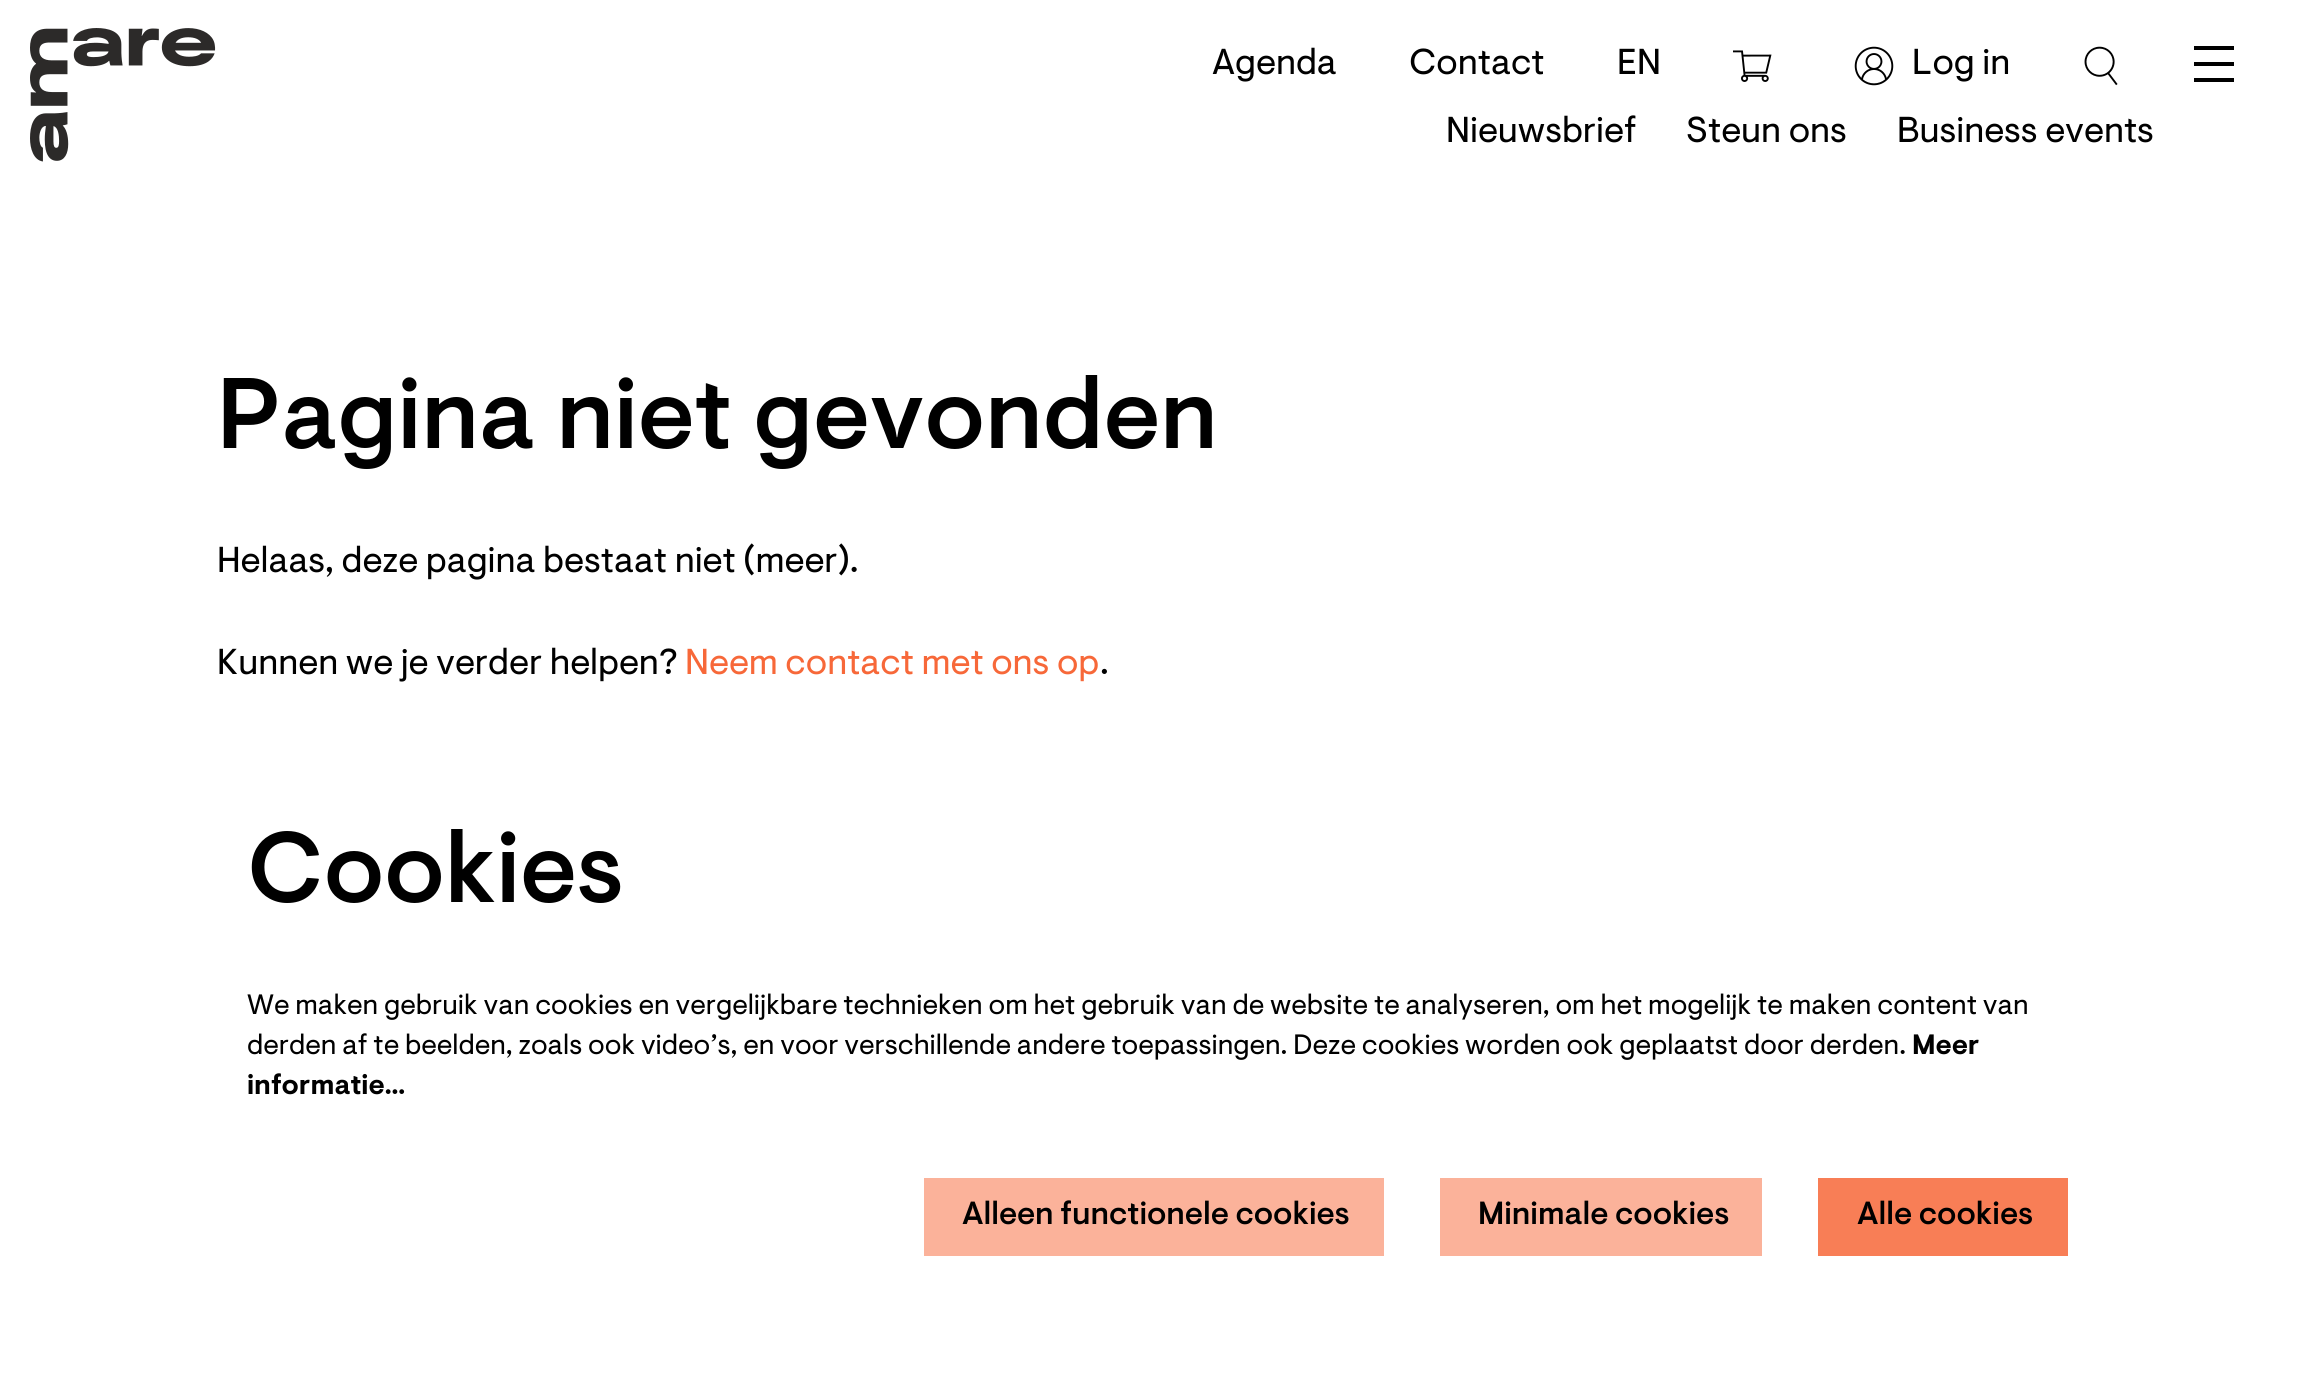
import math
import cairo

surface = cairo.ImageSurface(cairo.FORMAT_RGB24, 2314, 1376)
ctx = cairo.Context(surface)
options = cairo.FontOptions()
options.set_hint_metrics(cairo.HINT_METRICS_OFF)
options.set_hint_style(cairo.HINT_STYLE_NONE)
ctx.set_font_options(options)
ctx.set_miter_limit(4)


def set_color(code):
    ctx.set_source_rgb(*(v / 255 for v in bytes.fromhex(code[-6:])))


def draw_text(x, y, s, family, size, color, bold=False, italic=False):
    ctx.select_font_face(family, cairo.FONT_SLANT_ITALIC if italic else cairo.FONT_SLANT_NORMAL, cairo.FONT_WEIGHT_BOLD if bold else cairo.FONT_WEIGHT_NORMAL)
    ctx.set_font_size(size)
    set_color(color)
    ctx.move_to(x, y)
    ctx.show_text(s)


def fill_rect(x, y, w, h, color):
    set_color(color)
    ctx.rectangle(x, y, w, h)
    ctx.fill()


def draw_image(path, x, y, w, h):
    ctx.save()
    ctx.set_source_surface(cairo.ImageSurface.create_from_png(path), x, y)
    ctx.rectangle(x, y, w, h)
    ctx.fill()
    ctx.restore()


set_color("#ffffff")
ctx.paint()
draw_image("assets/img1.png", 30, 28, 186, 134)
draw_text(1212, 74, "Agenda", "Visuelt", 36, "#000000")
draw_text(1409, 74, "Contact", "Visuelt", 36, "#000000")
draw_text(1617, 74, "EN", "Visuelt", 36, "#000000")
draw_image("assets/img2.png", 1733, 50, 39, 32)
draw_image("assets/img3.png", 1854, 46, 40, 40)
draw_text(1912, 74, "Log in", "Visuelt", 36, "#000000")
draw_image("assets/img4.png", 2084, 46, 34, 40)
draw_text(1446, 142, "Nieuwsbrief", "Visuelt", 36, "#000000")
draw_text(1686, 142, "Steun ons", "Visuelt", 36, "#000000")
draw_text(1897, 142, "Business events", "Visuelt", 36, "#000000")
fill_rect(2194, 46, 40, 4, "#000000")
fill_rect(2194, 62, 40, 4, "#000000")
fill_rect(2194, 78, 40, 4, "#000000")
draw_text(217, 448, "Pagina niet gevonden", "Visuelt Medium", 100, "#000000")
draw_text(217, 572, "Helaas, deze pagina bestaat niet (meer).", "Visuelt", 36, "#000000")
draw_text(217, 674, "Kunnen we je verder helpen?", "Visuelt", 36, "#000000")
draw_text(685, 674, "Neem contact met ons op", "Visuelt", 36, "#f76839")
draw_text(1100, 674, ".", "Visuelt", 36, "#000000")
draw_text(247, 902, "Cookies", "Visuelt Medium", 100, "#000000")
draw_text(247, 1014, "We maken gebruik van cookies en vergelijkbare technieken om het gebruik van de website te analyseren, om het mogelijk te maken content van", "Visuelt", 28, "#000000")
draw_text(247, 1054, "derden af te beelden, zoals ook video’s, en voor verschillende andere toepassingen. Deze cookies worden ook geplaatst door derden.", "Visuelt", 28, "#000000")
draw_text(1912, 1054, "Meer", "Visuelt", 28, "#000000", bold=True)
draw_text(247, 1094, "informatie…", "Visuelt", 28, "#000000", bold=True)
fill_rect(924, 1178, 460, 78, "#fbb29a")
draw_text(962, 1224, "Alleen functionele cookies", "Visuelt Medium", 32, "#000000")
fill_rect(1440, 1178, 322, 78, "#fbb29a")
draw_text(1478, 1224, "Minimale cookies", "Visuelt Medium", 32, "#000000")
fill_rect(1818, 1178, 250, 78, "#f87e56")
draw_text(1857, 1224, "Alle cookies", "Visuelt Medium", 32, "#000000")
surface.write_to_png("output.png")
